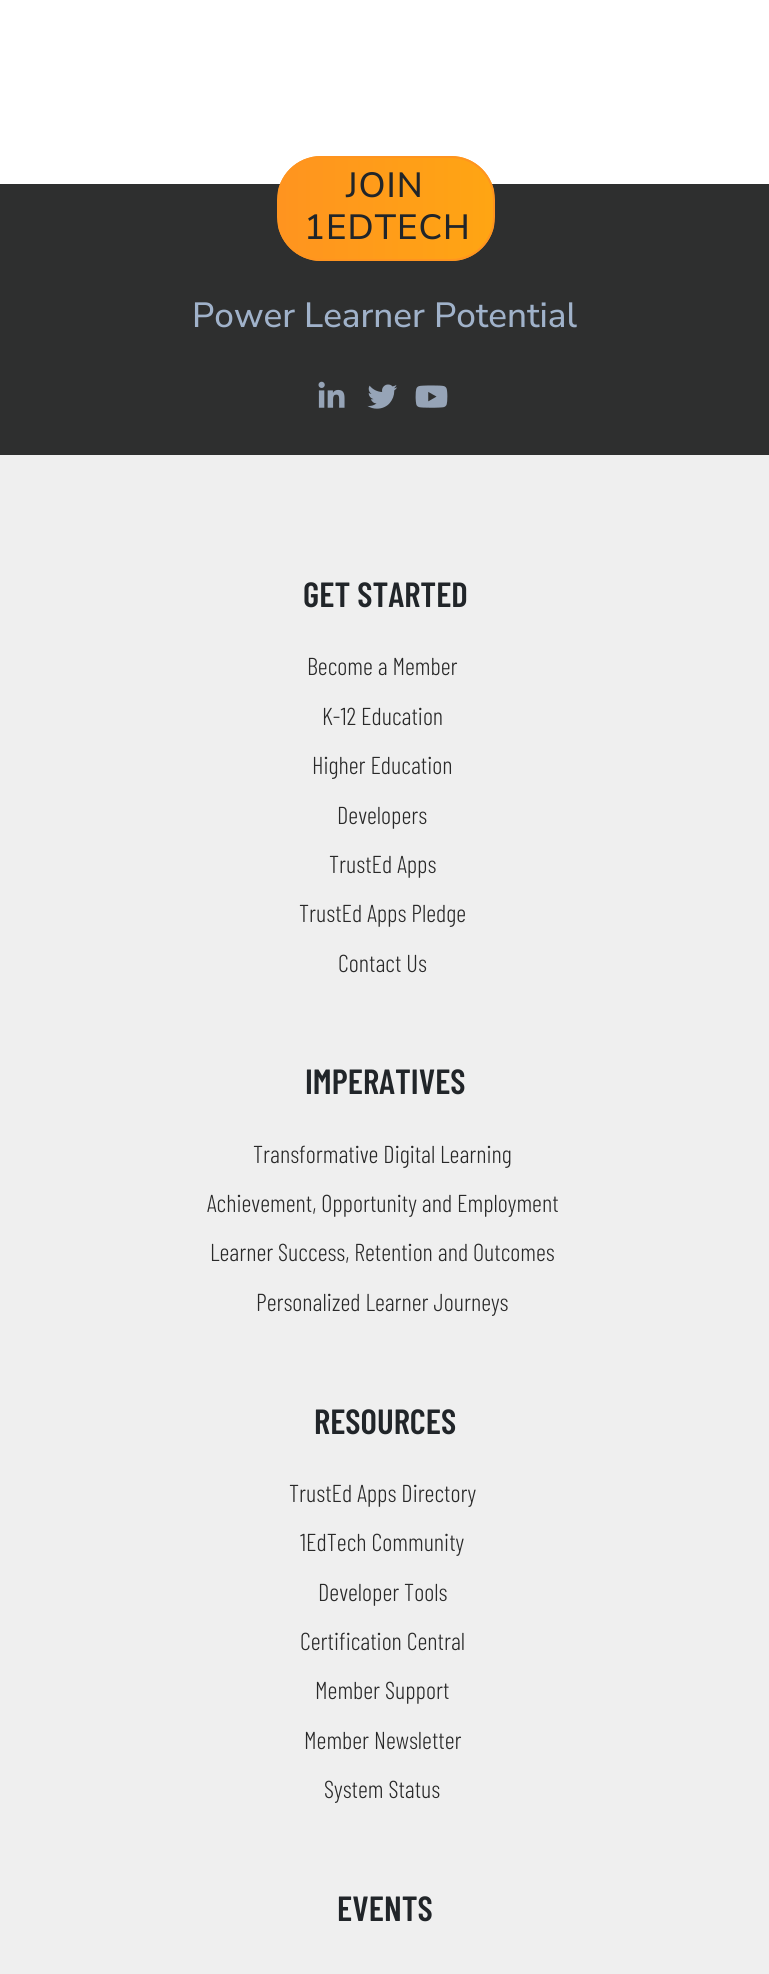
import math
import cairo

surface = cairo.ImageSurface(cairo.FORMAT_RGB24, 769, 1974)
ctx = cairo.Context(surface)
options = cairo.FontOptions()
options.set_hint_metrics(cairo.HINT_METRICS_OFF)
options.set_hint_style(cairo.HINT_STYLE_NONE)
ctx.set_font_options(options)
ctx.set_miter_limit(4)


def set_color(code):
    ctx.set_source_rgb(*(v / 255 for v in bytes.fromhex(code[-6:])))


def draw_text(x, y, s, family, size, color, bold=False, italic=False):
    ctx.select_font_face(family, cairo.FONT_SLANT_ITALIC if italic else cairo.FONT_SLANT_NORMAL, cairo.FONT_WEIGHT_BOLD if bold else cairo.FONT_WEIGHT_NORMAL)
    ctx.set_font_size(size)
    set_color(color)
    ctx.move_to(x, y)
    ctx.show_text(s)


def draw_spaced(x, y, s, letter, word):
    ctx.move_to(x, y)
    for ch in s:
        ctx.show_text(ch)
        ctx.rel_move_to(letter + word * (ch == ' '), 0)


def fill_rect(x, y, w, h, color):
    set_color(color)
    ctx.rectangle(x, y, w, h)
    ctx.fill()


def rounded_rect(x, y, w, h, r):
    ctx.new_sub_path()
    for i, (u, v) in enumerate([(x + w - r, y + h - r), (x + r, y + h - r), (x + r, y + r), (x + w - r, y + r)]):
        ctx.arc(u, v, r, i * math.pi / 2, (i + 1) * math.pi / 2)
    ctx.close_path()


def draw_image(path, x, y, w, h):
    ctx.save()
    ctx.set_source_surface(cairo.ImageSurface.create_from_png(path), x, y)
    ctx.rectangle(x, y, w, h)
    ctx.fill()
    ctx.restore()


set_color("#ffffff")
ctx.paint()
fill_rect(0, 184, 769, 271, "#2e2f2f")
ctx.save()
rounded_rect(277, 156, 218, 105, 44)
ctx.clip()
gradient = cairo.LinearGradient(278, 208, 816, 208)
gradient.add_color_stop_rgba(0, 1, 0.58, 0.122, 1)
gradient.add_color_stop_rgba(1, 1, 0.749, 0, 1)
ctx.set_source(gradient)
ctx.rectangle(278, 156, 216, 105)
ctx.fill()
ctx.restore()
rounded_rect(278, 157, 216, 103, 43)
set_color("#ff941f")
ctx.stroke()
ctx.select_font_face("Nunito Sans Medium")
ctx.set_font_size(35)
set_color("#212529")
draw_spaced(346, 197, "JOIN", 1, 0)
draw_spaced(304, 239, "1EDTECH", 1, 0)
draw_text(192, 327, "Power Learner Potential", "Nunito Sans Medium", 35, "#a0b2ca")
draw_image("assets/img1.png", 318, 381, 27, 27)
draw_image("assets/img2.png", 367, 384, 30, 25)
draw_image("assets/img3.png", 415, 385, 33, 23)
fill_rect(0, 455, 769, 1519, "#efefef")
draw_text(303, 607, "GET STARTED", "Barlow Condensed SemiBold", 35, "#212529")
draw_text(307, 675, "Become a Member", "Barlow Condensed Light", 24.5, "#292929")
draw_text(322, 725, "K-12 Education", "Barlow Condensed Light", 24.5, "#292929")
draw_text(312, 774, "Higher Education", "Barlow Condensed Light", 24.5, "#292929")
draw_text(337, 824, "Developers", "Barlow Condensed Light", 24.5, "#292929")
draw_text(329, 873, "TrustEd Apps", "Barlow Condensed Light", 24.5, "#292929")
draw_text(299, 922, "TrustEd Apps Pledge", "Barlow Condensed Light", 24.5, "#292929")
draw_text(338, 972, "Contact Us", "Barlow Condensed Light", 24.5, "#292929")
draw_text(305, 1094, "IMPERATIVES", "Barlow Condensed SemiBold", 35, "#212529")
draw_text(253, 1163, "Transformative Digital Learning", "Barlow Condensed Light", 24.5, "#292929")
draw_text(207, 1212, "Achievement, Opportunity and Employment", "Barlow Condensed Light", 24.5, "#292929")
draw_text(210, 1261, "Learner Success, Retention and Outcomes", "Barlow Condensed Light", 24.5, "#292929")
draw_text(256, 1311, "Personalized Learner Journeys", "Barlow Condensed Light", 24.5, "#292929")
draw_text(314, 1434, "RESOURCES", "Barlow Condensed SemiBold", 35, "#212529")
draw_text(289, 1502, "TrustEd Apps Directory", "Barlow Condensed Light", 24.5, "#292929")
draw_text(300, 1551, "1EdTech Community", "Barlow Condensed Light", 24.5, "#292929")
draw_text(318, 1601, "Developer Tools", "Barlow Condensed Light", 24.5, "#292929")
draw_text(300, 1650, "Certification Central", "Barlow Condensed Light", 24.5, "#292929")
draw_text(315, 1699, "Member Support", "Barlow Condensed Light", 24.5, "#292929")
draw_text(304, 1749, "Member Newsletter", "Barlow Condensed Light", 24.5, "#292929")
draw_text(324, 1798, "System Status", "Barlow Condensed Light", 24.5, "#292929")
draw_text(337, 1921, "EVENTS", "Barlow Condensed SemiBold", 35, "#212529")
surface.write_to_png("output.png")
